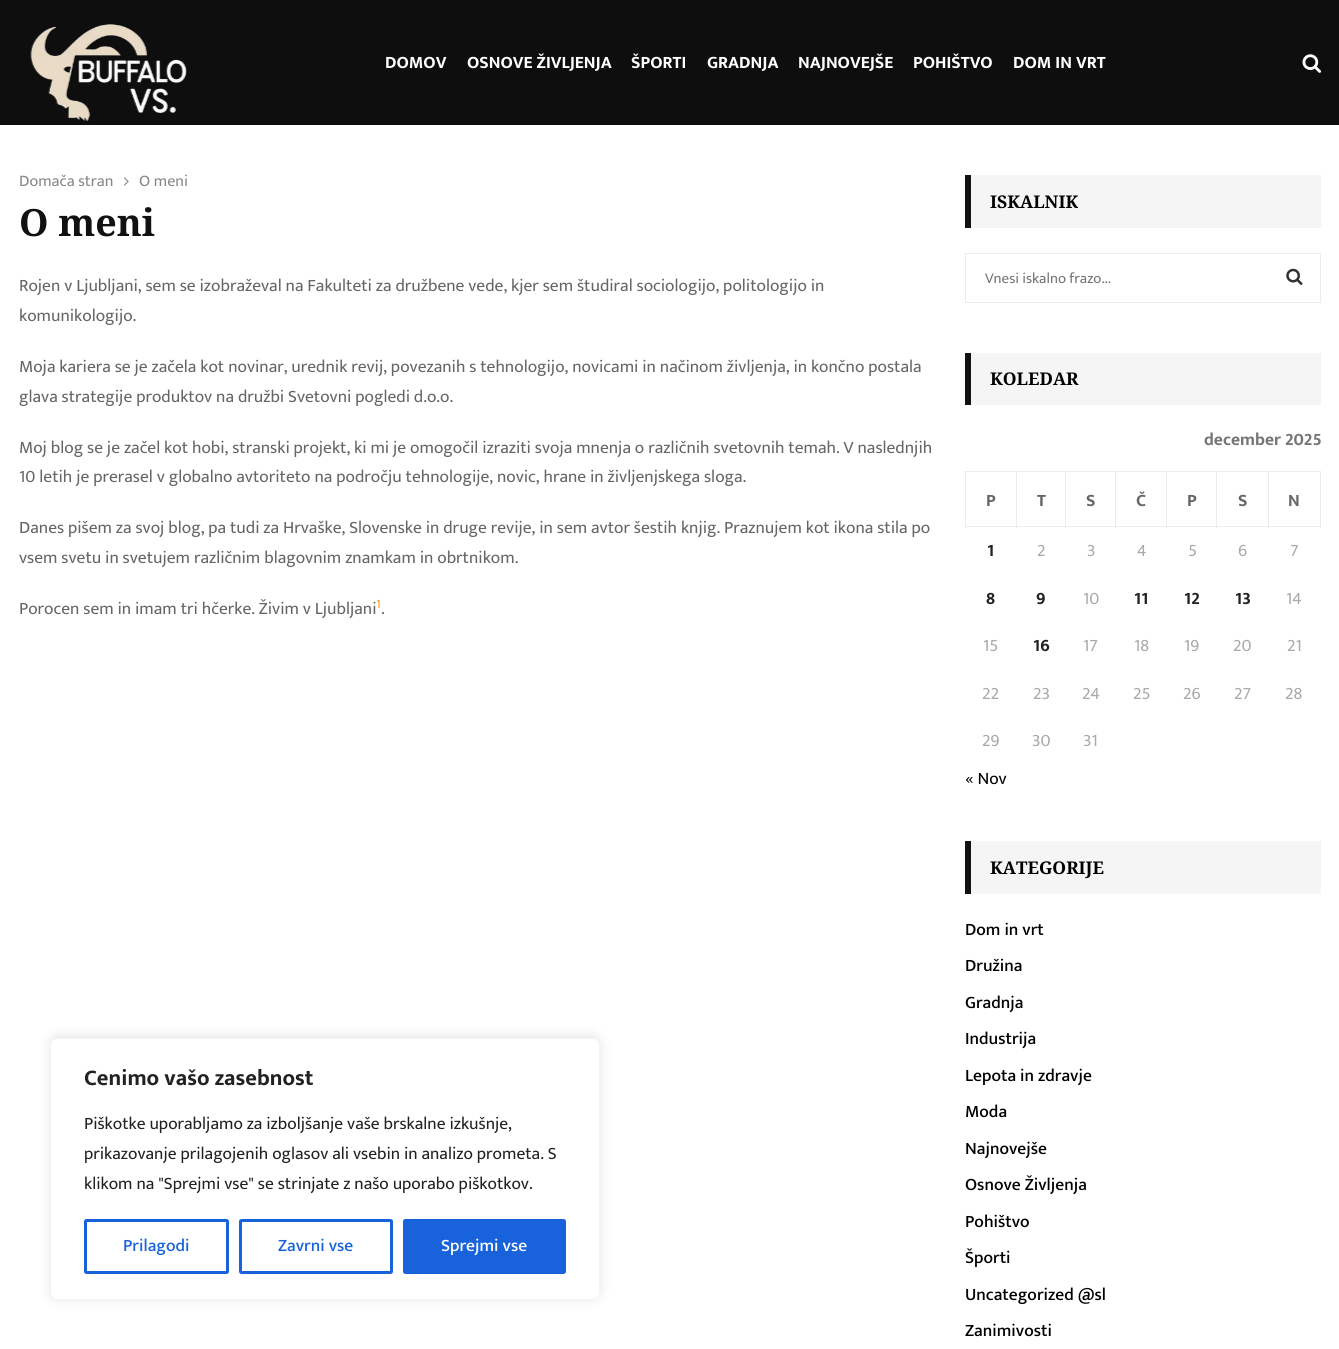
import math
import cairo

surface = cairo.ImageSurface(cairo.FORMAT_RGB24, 1339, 1349)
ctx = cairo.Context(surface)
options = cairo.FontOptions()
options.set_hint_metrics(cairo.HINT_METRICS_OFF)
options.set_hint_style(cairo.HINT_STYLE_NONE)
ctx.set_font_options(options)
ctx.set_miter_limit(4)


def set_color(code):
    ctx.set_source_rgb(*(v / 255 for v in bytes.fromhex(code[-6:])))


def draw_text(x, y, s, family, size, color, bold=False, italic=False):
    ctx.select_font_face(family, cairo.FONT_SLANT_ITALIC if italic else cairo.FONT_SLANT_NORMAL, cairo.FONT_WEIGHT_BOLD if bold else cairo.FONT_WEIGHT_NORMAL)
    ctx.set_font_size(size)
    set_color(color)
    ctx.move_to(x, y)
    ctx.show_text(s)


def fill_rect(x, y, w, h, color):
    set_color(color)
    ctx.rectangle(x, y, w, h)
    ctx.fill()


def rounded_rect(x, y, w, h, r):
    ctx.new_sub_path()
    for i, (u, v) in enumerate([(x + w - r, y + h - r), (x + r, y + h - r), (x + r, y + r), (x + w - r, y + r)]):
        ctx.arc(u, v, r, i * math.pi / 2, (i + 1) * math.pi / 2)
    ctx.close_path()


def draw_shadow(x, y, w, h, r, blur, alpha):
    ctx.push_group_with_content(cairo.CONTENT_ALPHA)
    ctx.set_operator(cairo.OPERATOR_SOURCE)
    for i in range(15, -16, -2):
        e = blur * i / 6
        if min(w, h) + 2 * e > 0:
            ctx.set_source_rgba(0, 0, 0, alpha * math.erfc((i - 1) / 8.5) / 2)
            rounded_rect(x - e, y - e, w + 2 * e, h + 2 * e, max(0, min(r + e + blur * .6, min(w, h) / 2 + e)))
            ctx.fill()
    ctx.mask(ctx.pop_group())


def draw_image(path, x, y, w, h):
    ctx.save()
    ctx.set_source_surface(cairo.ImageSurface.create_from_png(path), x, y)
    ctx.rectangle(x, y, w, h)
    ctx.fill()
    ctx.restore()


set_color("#ffffff")
ctx.paint()
fill_rect(0, 0, 1339, 125, "#0e0e0e")
draw_image("assets/img1.png", 30, 24, 157, 97)
draw_text(385, 68, "DOMOV", "Mukta", 17.5, "#ffffff", bold=True)
draw_text(467, 68, "OSNOVE ŽIVLJENJA", "Mukta", 17.5, "#ffffff", bold=True)
draw_text(631, 68, "ŠPORTI", "Mukta", 17.5, "#ffffff", bold=True)
draw_text(707, 68, "GRADNJA", "Mukta", 17.5, "#ffffff", bold=True)
draw_text(798, 68, "NAJNOVEJŠE", "Mukta", 17.5, "#ffffff", bold=True)
draw_text(913, 68, "POHIŠTVO", "Mukta", 17.5, "#ffffff", bold=True)
draw_text(1013, 68, "DOM IN VRT", "Mukta", 17.5, "#ffffff", bold=True)
draw_image("assets/img2.png", 1302, 54, 20, 19)
draw_text(19, 186, "Domača stran", "Mukta", 16.25, "#888888")
draw_image("assets/img3.png", 124, 177, 5, 9)
draw_text(139, 186, "O meni", "Mukta", 16.25, "#888888")
draw_text(19, 236, "O meni", "Noto Serif", 37.5, "#111111", bold=True)
draw_text(19, 291, "Rojen v Ljubljani, sem se izobraževal na Fakulteti za družbene vede, kjer sem študiral sociologijo, politologijo in", "Mukta", 17.5, "#666666")
draw_text(19, 321, "komunikologijo.", "Mukta", 17.5, "#666666")
draw_text(19, 372, "Moja kariera se je začela kot novinar, urednik revij, povezanih s tehnologijo, novicami in načinom življenja, in končno postala", "Mukta", 17.5, "#666666")
draw_text(19, 402, "glava strategije produktov na družbi Svetovni pogledi d.o.o.", "Mukta", 17.5, "#666666")
draw_text(19, 453, "Moj blog se je začel kot hobi, stranski projekt, ki mi je omogočil izraziti svoja mnenja o različnih svetovnih temah. V naslednjih", "Mukta", 17.5, "#666666")
draw_text(19, 482, "10 letih je prerasel v globalno avtoriteto na področju tehnologije, novic, hrane in življenjskega sloga.", "Mukta", 17.5, "#666666")
draw_text(19, 533, "Danes pišem za svoj blog, pa tudi za Hrvaške, Slovenske in druge revije, in sem avtor šestih knjig. Praznujem kot ikona stila po", "Mukta", 17.5, "#666666")
draw_text(19, 563, "vsem svetu in svetujem različnim blagovnim znamkam in obrtnikom.", "Mukta", 17.5, "#666666")
draw_text(19, 614, "Porocen sem in imam tri hčerke. Živim v Ljubljani", "Mukta", 17.5, "#666666")
draw_text(376, 608, "1", "Mukta", 13, "#ff990b")
draw_text(381, 614, ".", "Mukta", 17.5, "#666666")
fill_rect(971, 175, 350, 53, "#f5f5f5")
fill_rect(965, 175, 6, 53, "#111111")
draw_text(990, 208, "ISKALNIK", "Noto Serif", 17.5, "#000000", bold=True)
ctx.rectangle(965.5, 253.5, 355, 49)
set_color("#ececec")
ctx.set_line_width(1)
ctx.stroke()
draw_text(985, 283, "Vnesi iskalno frazo...", "Mukta", 15, "#757575")
draw_image("assets/img4.png", 1286, 268, 17, 17)
fill_rect(971, 353, 350, 52, "#f5f5f5")
fill_rect(965, 353, 6, 52, "#111111")
draw_text(990, 385, "KOLEDAR", "Noto Serif", 17.5, "#000000", bold=True)
draw_text(1204, 445, "december 2025", "Mukta", 17.5, "#757575", bold=True)
fill_rect(1268, 471, 53, 1, "#ececec")
fill_rect(1320, 471, 1, 57, "#ececec")
fill_rect(1268, 526, 53, 1, "#ececec")
fill_rect(1268, 471, 1, 57, "#ececec")
fill_rect(1216, 471, 53, 1, "#ececec")
fill_rect(1216, 526, 53, 1, "#ececec")
fill_rect(1216, 471, 1, 57, "#ececec")
fill_rect(1166, 471, 52, 1, "#ececec")
fill_rect(1166, 526, 52, 1, "#ececec")
fill_rect(1166, 471, 1, 57, "#ececec")
fill_rect(1115, 471, 53, 1, "#ececec")
fill_rect(1115, 526, 53, 1, "#ececec")
fill_rect(1115, 471, 1, 57, "#ececec")
fill_rect(1065, 471, 51, 1, "#ececec")
fill_rect(1065, 526, 51, 1, "#ececec")
fill_rect(1065, 471, 1, 57, "#ececec")
fill_rect(1016, 471, 50, 1, "#ececec")
fill_rect(1016, 526, 50, 1, "#ececec")
fill_rect(1016, 471, 1, 57, "#ececec")
fill_rect(965, 471, 53, 1, "#ececec")
fill_rect(965, 526, 53, 1, "#ececec")
fill_rect(965, 471, 1, 57, "#ececec")
draw_text(986, 506, "P", "Mukta", 17.5, "#666666", bold=True)
draw_text(1037, 506, "T", "Mukta", 17.5, "#666666", bold=True)
draw_text(1086, 506, "S", "Mukta", 17.5, "#666666", bold=True)
draw_text(1136, 506, "Č", "Mukta", 17.5, "#666666", bold=True)
draw_text(1187, 506, "P", "Mukta", 17.5, "#666666", bold=True)
draw_text(1238, 506, "S", "Mukta", 17.5, "#666666", bold=True)
draw_text(1288, 506, "N", "Mukta", 17.5, "#666666", bold=True)
draw_text(987, 556, "1", "Mukta", 17.5, "#222222", bold=True)
draw_text(1037, 556, "2", "Mukta", 17.5, "#aaaaaa")
draw_text(1087, 556, "3", "Mukta", 17.5, "#aaaaaa")
draw_text(1137, 556, "4", "Mukta", 17.5, "#aaaaaa")
draw_text(1188, 556, "5", "Mukta", 17.5, "#aaaaaa")
draw_text(1238, 556, "6", "Mukta", 17.5, "#aaaaaa")
draw_text(1290, 556, "7", "Mukta", 17.5, "#aaaaaa")
draw_text(986, 604, "8", "Mukta", 17.5, "#222222", bold=True)
draw_text(1036, 604, "9", "Mukta", 17.5, "#222222", bold=True)
draw_text(1083, 604, "10", "Mukta", 17.5, "#aaaaaa")
draw_text(1134, 604, "11", "Mukta", 17.5, "#222222", bold=True)
draw_text(1184, 604, "12", "Mukta", 17.5, "#222222", bold=True)
draw_text(1235, 604, "13", "Mukta", 17.5, "#222222", bold=True)
draw_text(1286, 604, "14", "Mukta", 17.5, "#aaaaaa")
draw_text(983, 651, "15", "Mukta", 17.5, "#aaaaaa")
draw_text(1033, 651, "16", "Mukta", 17.5, "#222222", bold=True)
draw_text(1083, 651, "17", "Mukta", 17.5, "#aaaaaa")
draw_text(1134, 651, "18", "Mukta", 17.5, "#aaaaaa")
draw_text(1184, 651, "19", "Mukta", 17.5, "#aaaaaa")
draw_text(1233, 651, "20", "Mukta", 17.5, "#aaaaaa")
draw_text(1287, 651, "21", "Mukta", 17.5, "#aaaaaa")
draw_text(982, 699, "22", "Mukta", 17.5, "#aaaaaa")
draw_text(1033, 699, "23", "Mukta", 17.5, "#aaaaaa")
draw_text(1082, 699, "24", "Mukta", 17.5, "#aaaaaa")
draw_text(1133, 699, "25", "Mukta", 17.5, "#aaaaaa")
draw_text(1183, 699, "26", "Mukta", 17.5, "#aaaaaa")
draw_text(1234, 699, "27", "Mukta", 17.5, "#aaaaaa")
draw_text(1285, 699, "28", "Mukta", 17.5, "#aaaaaa")
draw_text(982, 746, "29", "Mukta", 17.5, "#aaaaaa")
draw_text(1032, 746, "30", "Mukta", 17.5, "#aaaaaa")
draw_text(1083, 746, "31", "Mukta", 17.5, "#aaaaaa")
draw_text(965, 784, "« Nov", "Mukta", 17.5, "#000000")
fill_rect(971, 841, 350, 53, "#f5f5f5")
fill_rect(965, 841, 6, 53, "#111111")
draw_text(990, 874, "KATEGORIJE", "Noto Serif", 17.5, "#000000", bold=True)
draw_text(965, 935, "Dom in vrt", "Mukta Medium", 17.5, "#000000")
draw_text(965, 971, "Družina", "Mukta Medium", 17.5, "#000000")
draw_text(965, 1008, "Gradnja", "Mukta Medium", 17.5, "#000000")
draw_text(965, 1044, "Industrija", "Mukta Medium", 17.5, "#000000")
draw_text(965, 1081, "Lepota in zdravje", "Mukta Medium", 17.5, "#000000")
draw_text(965, 1117, "Moda", "Mukta Medium", 17.5, "#000000")
draw_text(965, 1154, "Najnovejše", "Mukta Medium", 17.5, "#000000")
draw_text(965, 1190, "Osnove Življenja", "Mukta Medium", 17.5, "#000000")
draw_text(965, 1227, "Pohištvo", "Mukta Medium", 17.5, "#000000")
draw_text(965, 1263, "Športi", "Mukta Medium", 17.5, "#000000")
draw_text(965, 1300, "Uncategorized @sl", "Mukta Medium", 17.5, "#000000")
draw_text(965, 1336, "Zanimivosti", "Mukta Medium", 17.5, "#000000")
ctx.save()
ctx.set_fill_rule(cairo.FILL_RULE_EVEN_ODD)
ctx.new_path()
ctx.move_to(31, 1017)
ctx.line_to(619, 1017)
ctx.line_to(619, 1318)
ctx.line_to(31, 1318)
ctx.close_path()
ctx.move_to(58, 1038)
ctx.line_to(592, 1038)
ctx.curve_to(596.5, 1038, 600, 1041.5, 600, 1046)
ctx.line_to(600, 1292)
ctx.curve_to(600, 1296.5, 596.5, 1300, 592, 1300)
ctx.line_to(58, 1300)
ctx.curve_to(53.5, 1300, 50, 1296.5, 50, 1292)
ctx.line_to(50, 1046)
ctx.curve_to(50, 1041.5, 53.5, 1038, 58, 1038)
ctx.close_path()
ctx.clip()
set_color("#acabab")
draw_shadow(50, 1036, 550, 263, 8, 6, 0.3)
ctx.restore()
rounded_rect(50.5, 1038.5, 549, 261, 7.5)
set_color("#f4f4f4")
ctx.stroke()
draw_text(84, 1085, "Cenimo vašo zasebnost", "Mukta", 22.5, "#222222", bold=True)
draw_text(84, 1129, "Piškotke uporabljamo za izboljšanje vaše brskalne izkušnje,", "Mukta", 17.5, "#222222")
draw_text(84, 1159, "prikazovanje prilagojenih oglasov ali vsebin in analizo prometa. S", "Mukta", 17.5, "#222222")
draw_text(84, 1189, "klikom na \"Sprejmi vse\" se strinjate z našo uporabo piškotkov.", "Mukta", 17.5, "#222222")
rounded_rect(85.5, 1220.5, 142, 52, 1)
set_color("#1863dc")
ctx.set_line_width(3)
ctx.stroke()
draw_text(123, 1251, "Prilagodi", "Mukta Medium", 17.5, "#1863dc")
rounded_rect(240.5, 1220.5, 151, 52, 1)
ctx.stroke()
draw_text(278, 1251, "Zavrni vse", "Mukta Medium", 17.5, "#1863dc")
rounded_rect(404.5, 1220.5, 160, 52, 1)
ctx.fill_preserve()
ctx.stroke()
draw_text(441, 1251, "Sprejmi vse", "Mukta Medium", 17.5, "#ffffff")
surface.write_to_png("output.png")
